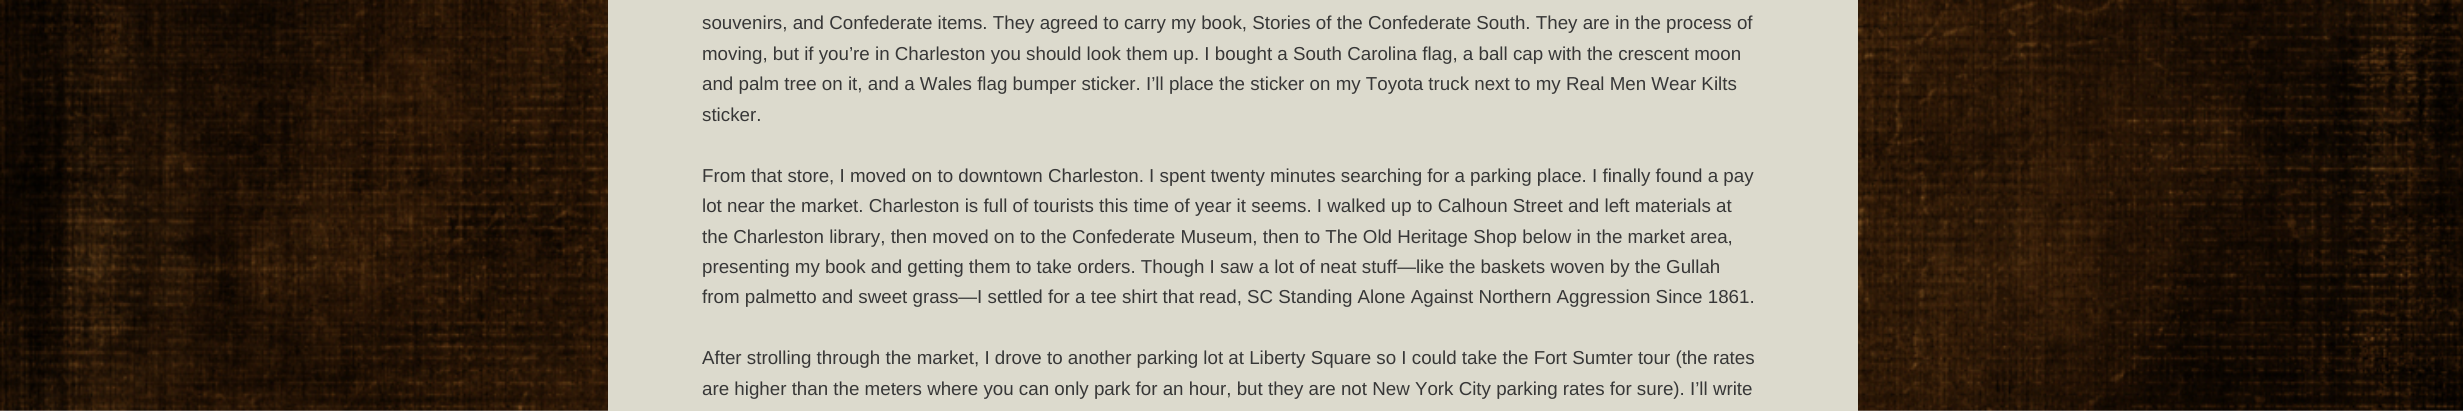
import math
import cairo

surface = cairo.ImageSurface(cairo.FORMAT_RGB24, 2463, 411)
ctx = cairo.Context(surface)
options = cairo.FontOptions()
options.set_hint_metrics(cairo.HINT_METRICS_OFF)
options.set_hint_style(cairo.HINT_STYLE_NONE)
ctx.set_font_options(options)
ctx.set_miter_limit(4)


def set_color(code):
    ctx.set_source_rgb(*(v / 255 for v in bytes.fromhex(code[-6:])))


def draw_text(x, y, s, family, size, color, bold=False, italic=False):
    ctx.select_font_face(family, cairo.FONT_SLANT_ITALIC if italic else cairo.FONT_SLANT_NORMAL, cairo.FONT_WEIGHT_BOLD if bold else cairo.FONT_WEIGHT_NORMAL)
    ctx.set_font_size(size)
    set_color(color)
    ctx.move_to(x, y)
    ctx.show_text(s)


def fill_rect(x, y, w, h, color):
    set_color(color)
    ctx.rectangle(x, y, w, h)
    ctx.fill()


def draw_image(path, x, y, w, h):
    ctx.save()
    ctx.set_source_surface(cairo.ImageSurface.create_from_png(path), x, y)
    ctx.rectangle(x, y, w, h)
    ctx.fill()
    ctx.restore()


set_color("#ffffff")
ctx.paint()
draw_image("assets/img1.png", 0, 0, 2463, 411)
fill_rect(608, 0, 1250, 411, "#dcdacd")
draw_text(702, 29, "souvenirs, and Confederate items. They agreed to carry my book, Stories of the Confederate South. They are in the process of", "Liberation Sans", 18.75, "#373737")
draw_text(702, 60, "moving, but if you’re in Charleston you should look them up. I bought a South Carolina flag, a ball cap with the crescent moon", "Liberation Sans", 18.75, "#373737")
draw_text(702, 90, "and palm tree on it, and a Wales flag bumper sticker. I’ll place the sticker on my Toyota truck next to my Real Men Wear Kilts", "Liberation Sans", 18.75, "#373737")
draw_text(702, 121, "sticker.", "Liberation Sans", 18.75, "#373737")
draw_text(702, 182, "From that store, I moved on to downtown Charleston. I spent twenty minutes searching for a parking place. I finally found a pay", "Liberation Sans", 18.75, "#373737")
draw_text(702, 212, "lot near the market. Charleston is full of tourists this time of year it seems. I walked up to Calhoun Street and left materials at", "Liberation Sans", 18.75, "#373737")
draw_text(702, 243, "the Charleston library, then moved on to the Confederate Museum, then to The Old Heritage Shop below in the market area,", "Liberation Sans", 18.75, "#373737")
draw_text(702, 273, "presenting my book and getting them to take orders. Though I saw a lot of neat stuff—like the baskets woven by the Gullah", "Liberation Sans", 18.75, "#373737")
draw_text(702, 303, "from palmetto and sweet grass—I settled for a tee shirt that read, SC Standing Alone Against Northern Aggression Since 1861.", "Liberation Sans", 18.75, "#373737")
draw_text(702, 364, "After strolling through the market, I drove to another parking lot at Liberty Square so I could take the Fort Sumter tour (the rates", "Liberation Sans", 18.75, "#373737")
draw_text(702, 395, "are higher than the meters where you can only park for an hour, but they are not New York City parking rates for sure). I’ll write", "Liberation Sans", 18.75, "#373737")
surface.write_to_png("output.png")
